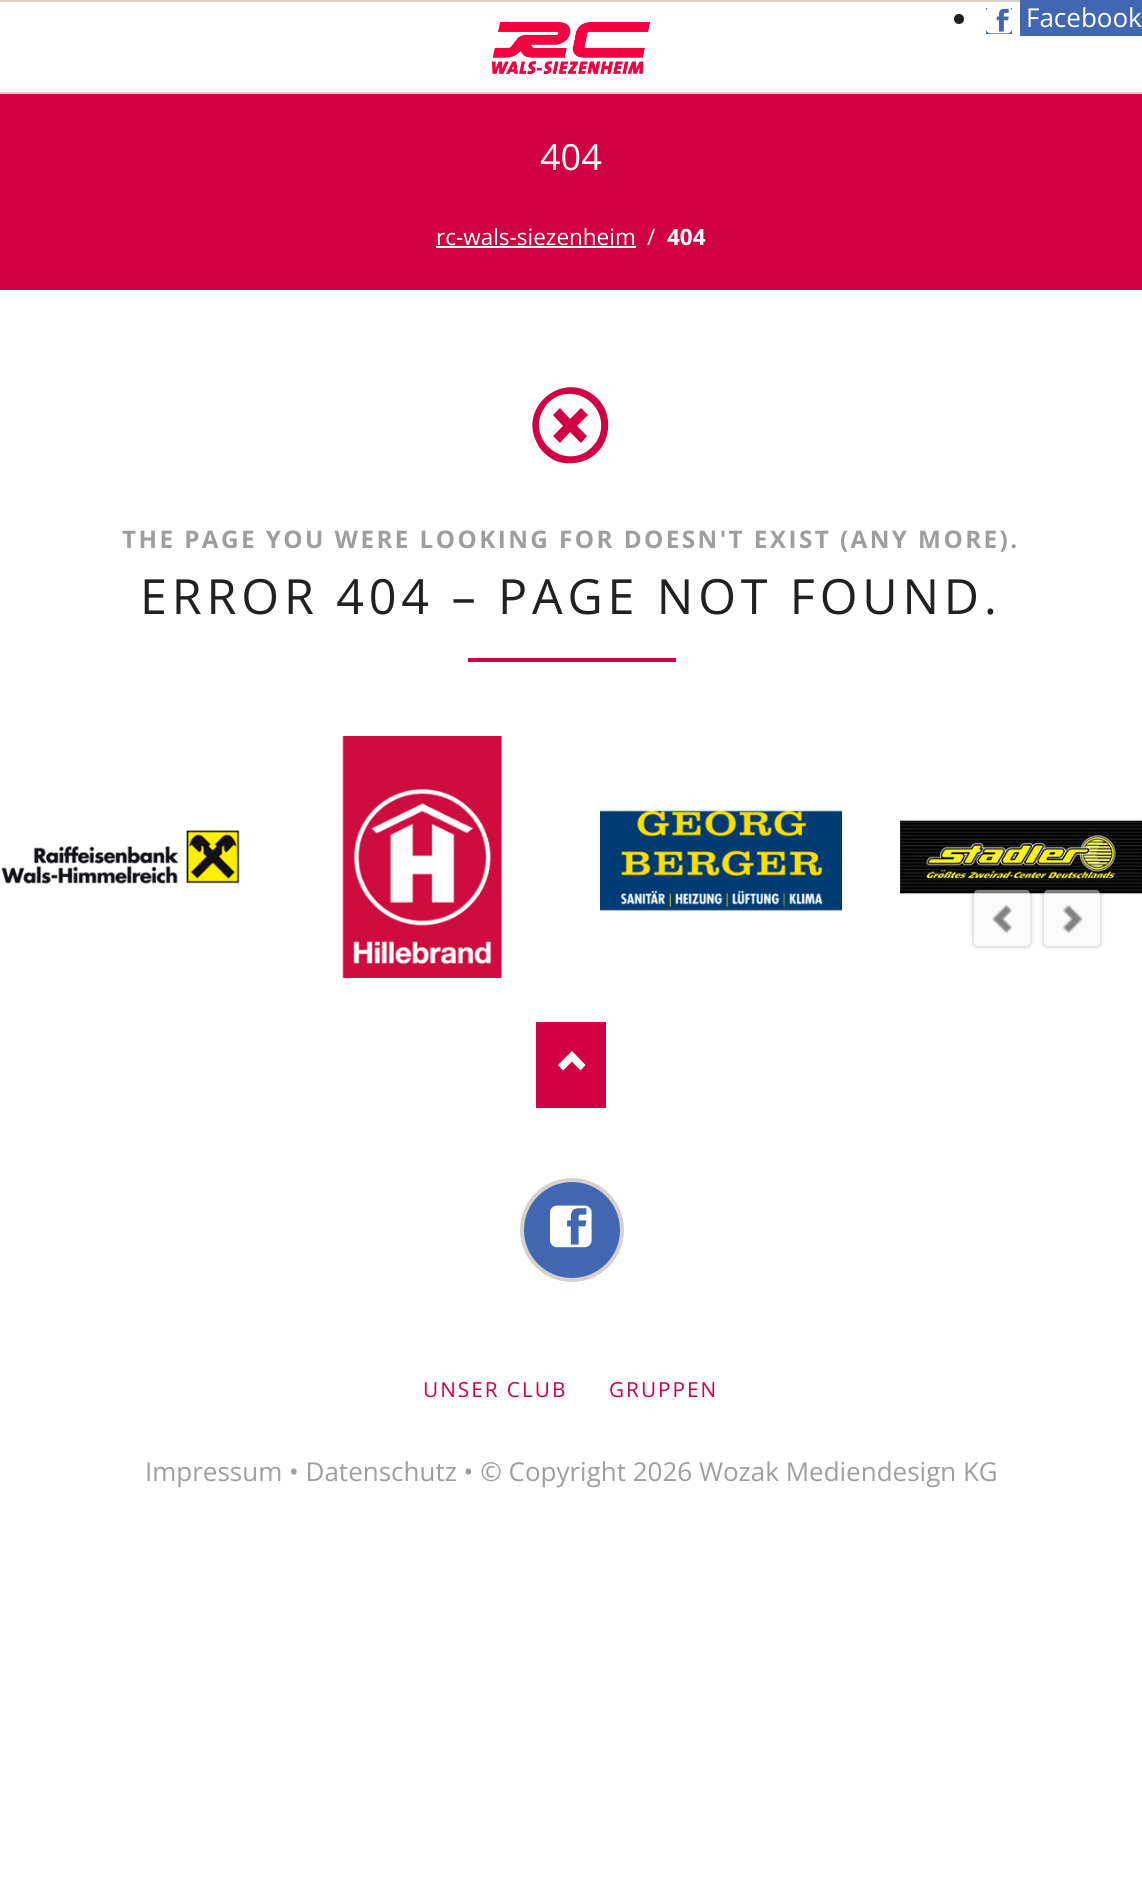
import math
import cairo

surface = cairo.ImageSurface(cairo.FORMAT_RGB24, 1142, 1904)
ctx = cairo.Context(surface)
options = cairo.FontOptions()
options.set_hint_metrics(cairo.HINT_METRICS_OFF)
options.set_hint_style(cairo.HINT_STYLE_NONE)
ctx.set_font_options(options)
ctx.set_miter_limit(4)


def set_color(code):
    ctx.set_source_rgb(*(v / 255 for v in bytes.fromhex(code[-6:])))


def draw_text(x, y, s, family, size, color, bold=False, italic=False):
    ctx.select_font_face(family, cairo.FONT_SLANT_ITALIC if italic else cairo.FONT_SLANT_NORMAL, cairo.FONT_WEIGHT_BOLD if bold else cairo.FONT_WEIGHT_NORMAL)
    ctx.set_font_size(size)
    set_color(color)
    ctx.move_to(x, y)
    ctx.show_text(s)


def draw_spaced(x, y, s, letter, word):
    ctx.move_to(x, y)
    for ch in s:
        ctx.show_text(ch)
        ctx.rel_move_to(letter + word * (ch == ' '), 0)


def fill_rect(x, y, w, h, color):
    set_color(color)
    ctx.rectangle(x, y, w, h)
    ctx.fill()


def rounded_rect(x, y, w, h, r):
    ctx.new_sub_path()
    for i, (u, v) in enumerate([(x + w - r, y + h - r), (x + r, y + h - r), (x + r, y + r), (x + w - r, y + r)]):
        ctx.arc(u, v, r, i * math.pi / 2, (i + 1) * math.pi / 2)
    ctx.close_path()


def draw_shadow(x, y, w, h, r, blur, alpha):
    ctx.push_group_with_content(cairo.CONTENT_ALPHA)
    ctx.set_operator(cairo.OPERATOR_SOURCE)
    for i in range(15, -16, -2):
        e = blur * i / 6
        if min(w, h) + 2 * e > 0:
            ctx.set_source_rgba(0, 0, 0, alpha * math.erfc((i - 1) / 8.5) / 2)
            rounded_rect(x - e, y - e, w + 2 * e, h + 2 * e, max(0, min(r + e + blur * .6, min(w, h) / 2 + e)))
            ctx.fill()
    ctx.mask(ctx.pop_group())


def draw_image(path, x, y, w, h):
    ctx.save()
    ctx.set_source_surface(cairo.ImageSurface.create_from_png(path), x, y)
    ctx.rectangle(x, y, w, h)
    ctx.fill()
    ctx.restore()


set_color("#ffffff")
ctx.paint()
fill_rect(0, 0, 1020, 2, "#d8d0ca")
fill_rect(0, 92, 1142, 2, "#d8d0ca")
set_color("#212121")
ctx.arc(959, 19, 5, 0, 2 * math.pi)
ctx.fill()
fill_rect(986, 8, 26, 26, "#4267b2")
fill_rect(1020, 0, 122, 36, "#4267b2")
draw_image("assets/img1.png", 986, 8, 26, 26)
draw_text(1026, 27, "Facebook", "Open Sans", 26, "#ffffff")
draw_image("assets/img2.png", 492, 22, 158, 52)
fill_rect(0, 94, 1142, 196, "#d10042")
draw_text(540, 170, "404", "Open Sans", 36, "#ffffff")
draw_text(436, 245, "rc-wals-siezenheim", "Open Sans", 22.5, "#ffffff")
fill_rect(436, 246, 200, 2, "#ffffff")
draw_text(647, 245, "/", "Open Sans", 22.5, "#ffffff")
draw_text(667, 245, "404", "Open Sans", 22.5, "#ffffff", bold=True)
set_color("#d10042")
ctx.new_path()
ctx.move_to(589, 392)
ctx.curve_to(557, 374, 519, 410, 537, 443)
ctx.curve_to(540, 450, 546, 455, 552, 459)
ctx.curve_to(559, 463, 567, 464, 574, 463)
ctx.curve_to(611, 460, 621, 410, 589, 392)
ctx.close_path()
ctx.move_to(592, 447)
ctx.curve_to(572, 468, 537, 451, 539, 422)
ctx.curve_to(540, 415, 543, 409, 548, 403)
ctx.curve_to(569, 382, 604, 400, 601, 429)
ctx.curve_to(600, 436, 597, 442, 592, 447)
ctx.close_path()
ctx.move_to(581, 408)
ctx.line_to(570, 419)
ctx.line_to(560, 408)
ctx.line_to(553, 415)
ctx.line_to(563, 426)
ctx.line_to(553, 436)
ctx.line_to(560, 443)
ctx.line_to(570, 432)
ctx.line_to(581, 443)
ctx.line_to(587, 436)
ctx.line_to(577, 426)
ctx.line_to(588, 415)
ctx.close_path()
ctx.fill()
ctx.set_font_size(24.25)
set_color("#9e9e9e")
draw_spaced(122, 548, "THE PAGE YOU WERE LOOKING FOR DOESN'T EXIST (ANY MORE).", 2.43, 0)
ctx.select_font_face("Open Sans")
ctx.set_font_size(48.5)
set_color("#212121")
draw_spaced(140, 614, "ERROR 404 – PAGE NOT FOUND.", 4.85, 0)
fill_rect(468, 658, 208, 4, "#d10042")
draw_image("assets/img3.png", 1, 830, 239, 54)
draw_image("assets/img4.png", 342, 736, 162, 242)
draw_image("assets/img5.png", 600, 810, 242, 101)
draw_image("assets/img6.png", 900, 820, 242, 75)
ctx.save()
ctx.set_fill_rule(cairo.FILL_RULE_EVEN_ODD)
ctx.new_path()
ctx.move_to(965, 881)
ctx.line_to(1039, 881)
ctx.line_to(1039, 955)
ctx.line_to(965, 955)
ctx.close_path()
ctx.move_to(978, 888)
ctx.line_to(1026, 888)
ctx.curve_to(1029.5, 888, 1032, 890.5, 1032, 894)
ctx.line_to(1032, 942)
ctx.curve_to(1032, 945.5, 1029.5, 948, 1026, 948)
ctx.line_to(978, 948)
ctx.curve_to(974.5, 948, 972, 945.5, 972, 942)
ctx.line_to(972, 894)
ctx.curve_to(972, 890.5, 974.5, 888, 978, 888)
ctx.close_path()
ctx.clip()
set_color("#000000")
draw_shadow(972, 888, 60, 60, 6, 2, 0.1)
ctx.restore()
draw_image("assets/img7.png", 974, 890, 56, 56)
rounded_rect(973, 889, 58, 58, 5)
ctx.set_source_rgba(0, 0, 0, 0.1)
ctx.stroke()
ctx.save()
ctx.set_fill_rule(cairo.FILL_RULE_EVEN_ODD)
ctx.new_path()
ctx.move_to(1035, 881)
ctx.line_to(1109, 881)
ctx.line_to(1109, 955)
ctx.line_to(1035, 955)
ctx.close_path()
ctx.move_to(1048, 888)
ctx.line_to(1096, 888)
ctx.curve_to(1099.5, 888, 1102, 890.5, 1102, 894)
ctx.line_to(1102, 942)
ctx.curve_to(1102, 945.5, 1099.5, 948, 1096, 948)
ctx.line_to(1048, 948)
ctx.curve_to(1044.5, 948, 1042, 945.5, 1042, 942)
ctx.line_to(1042, 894)
ctx.curve_to(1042, 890.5, 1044.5, 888, 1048, 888)
ctx.close_path()
ctx.clip()
set_color("#000000")
draw_shadow(1042, 888, 60, 60, 6, 2, 0.1)
ctx.restore()
draw_image("assets/img8.png", 1044, 890, 56, 56)
rounded_rect(1043, 889, 58, 58, 5)
ctx.stroke()
fill_rect(536, 1022, 70, 86, "#d10042")
set_color("#ffffff")
ctx.new_path()
ctx.move_to(558, 1065)
ctx.line_to(563, 1070.5)
ctx.line_to(572, 1061.5)
ctx.line_to(580.5, 1070.5)
ctx.line_to(585.5, 1065)
ctx.line_to(572, 1051)
ctx.close_path()
ctx.fill()
set_color("#4267b2")
ctx.arc(572, 1230, 50, 0, 2 * math.pi)
ctx.fill_preserve()
set_color("#d8d0ca")
ctx.set_line_width(4)
ctx.stroke()
draw_image("assets/img9.png", 550, 1205, 42, 43)
ctx.set_font_size(20.75)
set_color("#d10042")
draw_spaced(423, 1397, "UNSER CLUB", 2, 0)
draw_spaced(609, 1397, "GRUPPEN", 2, 0)
draw_text(145, 1481, "Impressum • Datenschutz • © Copyright 2026 Wozak Mediendesign KG", "Open Sans", 26, "#9e9e9e")
surface.write_to_png("output.png")
